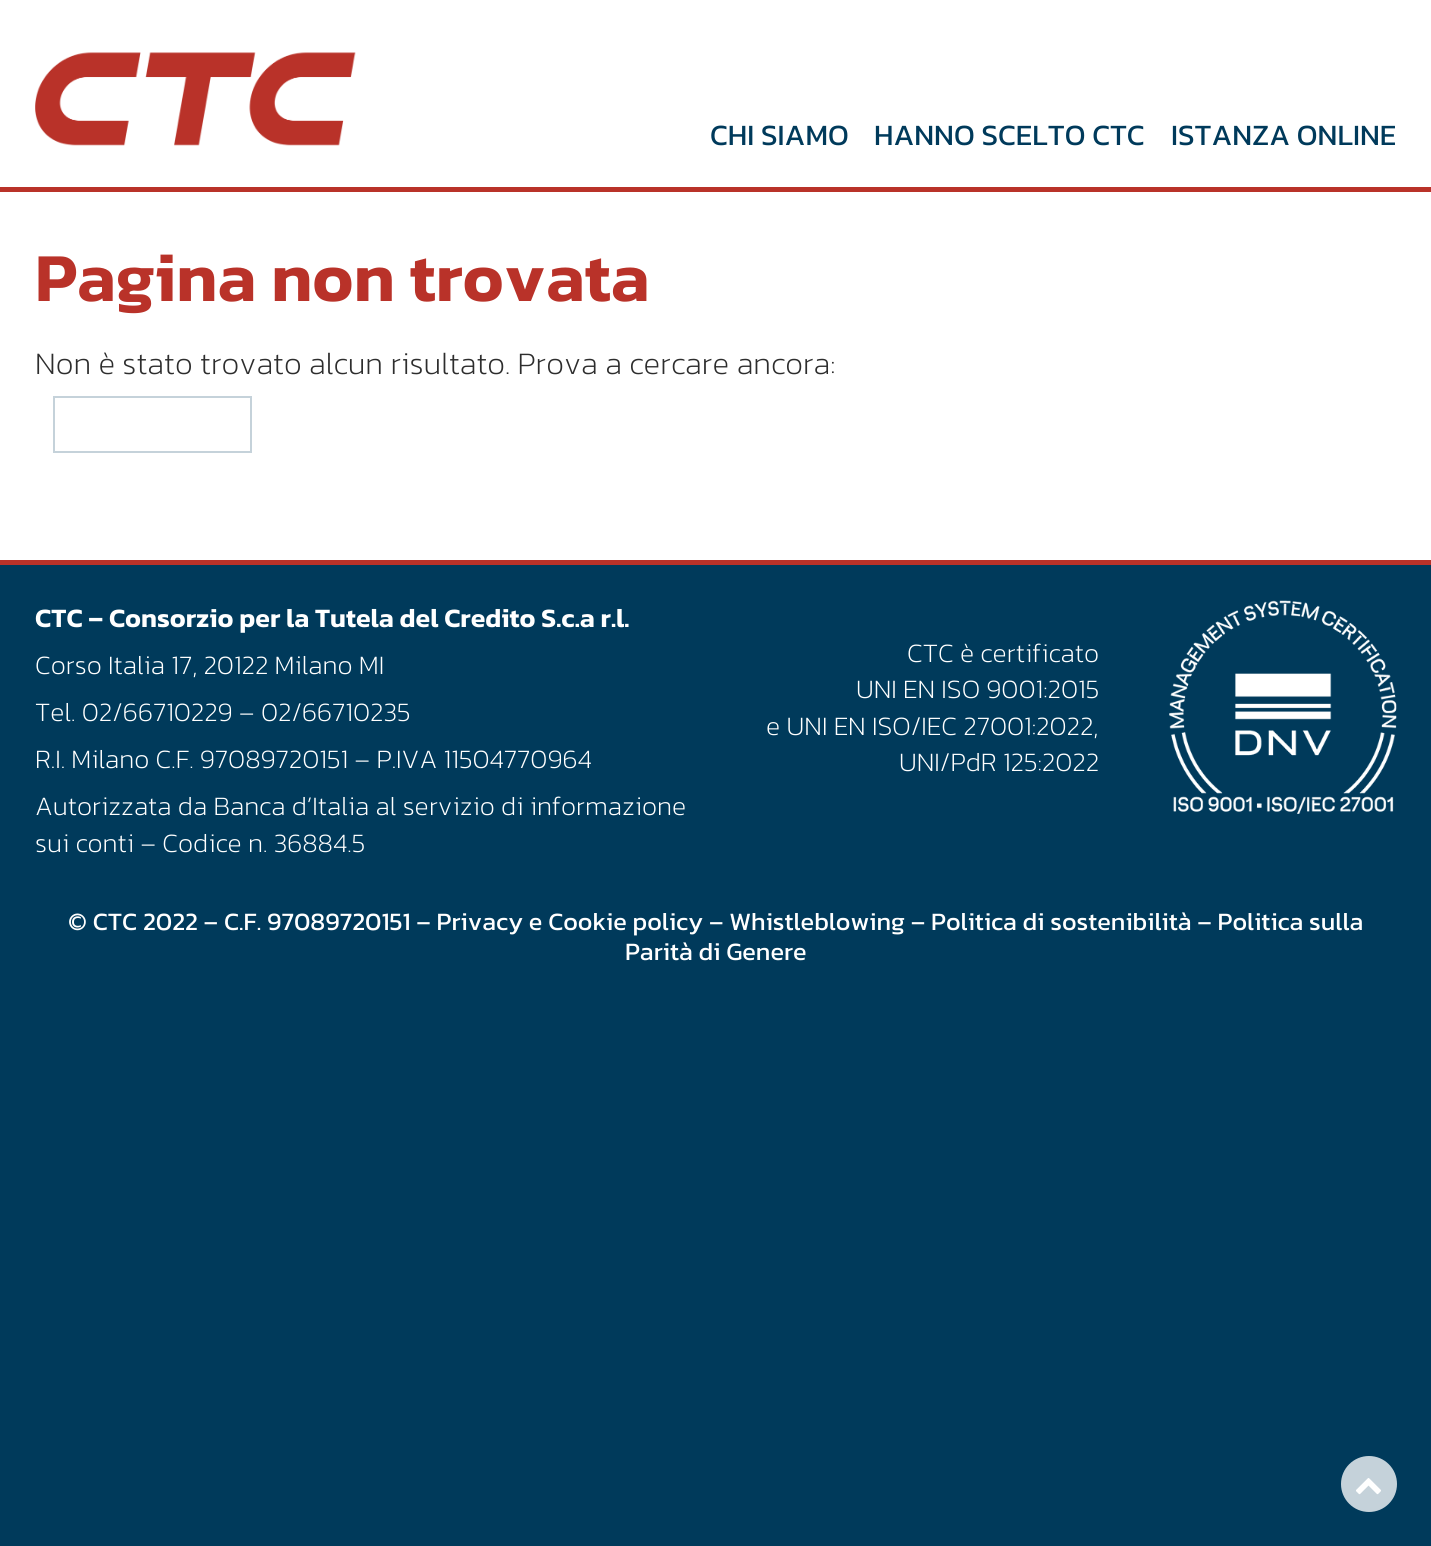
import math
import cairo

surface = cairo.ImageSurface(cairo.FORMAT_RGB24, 1431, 1546)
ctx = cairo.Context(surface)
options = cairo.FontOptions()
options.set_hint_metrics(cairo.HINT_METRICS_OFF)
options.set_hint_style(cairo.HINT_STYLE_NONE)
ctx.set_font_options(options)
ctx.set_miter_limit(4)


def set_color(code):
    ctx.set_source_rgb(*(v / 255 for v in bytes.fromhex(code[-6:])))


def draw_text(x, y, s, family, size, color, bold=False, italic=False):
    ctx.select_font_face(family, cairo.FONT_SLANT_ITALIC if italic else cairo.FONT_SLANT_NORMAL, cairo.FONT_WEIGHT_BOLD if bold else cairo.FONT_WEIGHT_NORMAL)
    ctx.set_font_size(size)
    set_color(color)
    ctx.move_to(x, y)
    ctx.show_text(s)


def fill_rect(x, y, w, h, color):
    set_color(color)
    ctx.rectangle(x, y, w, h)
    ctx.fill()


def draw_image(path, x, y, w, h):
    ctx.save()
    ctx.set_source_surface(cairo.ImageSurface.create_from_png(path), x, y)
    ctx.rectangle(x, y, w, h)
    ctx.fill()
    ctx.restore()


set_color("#003a5b")
ctx.paint()
fill_rect(0, 0, 1431, 560, "#ffffff")
fill_rect(0, 187, 1431, 5, "#b93229")
draw_image("assets/img1.png", 35, 52, 321, 94)
draw_text(710, 145, "CHI SIAMO", "Kanit", 29.75, "#003a5b")
draw_text(874, 145, "HANNO SCELTO CTC", "Kanit", 29.75, "#003a5b")
draw_text(1171, 145, "ISTANZA ONLINE", "Kanit", 29.75, "#003a5b")
draw_text(35, 301, "Pagina non trovata", "Kanit SemiBold", 69.25, "#b93229")
draw_text(35, 374, "Non è stato trovato alcun risultato. Prova a cercare ancora:", "Kanit ExtraLight", 31.5, "#2d2d2d")
ctx.rectangle(54, 397, 197, 55)
set_color("#c5d2da")
ctx.stroke()
fill_rect(0, 560, 1431, 5, "#b93229")
draw_text(35, 627, "CTC – Consorzio per la Tutela del Credito S.c.a r.l.", "Kanit SemiBold", 26.75, "#ffffff")
draw_text(35, 674, "Corso Italia 17, 20122 Milano MI", "Kanit ExtraLight", 26.75, "#ffffff")
draw_text(35, 721, "Tel. 02/66710229 – 02/66710235", "Kanit ExtraLight", 26.75, "#ffffff")
draw_text(35, 768, "R.I. Milano C.F. 97089720151 – P.IVA 11504770964", "Kanit ExtraLight", 26.75, "#ffffff")
draw_text(35, 815, "Autorizzata da Banca d’Italia al servizio di informazione", "Kanit ExtraLight", 26.75, "#ffffff")
draw_text(35, 852, "sui conti – Codice n. 36884.5", "Kanit ExtraLight", 26.75, "#ffffff")
draw_text(907, 662, "CTC è certificato", "Kanit ExtraLight", 26.75, "#ffffff")
draw_image("assets/img2.png", 1169, 600, 228, 214)
draw_text(856, 698, "UNI EN ISO 9001:2015", "Kanit ExtraLight", 26.75, "#ffffff")
draw_text(766, 735, "e UNI EN ISO/IEC 27001:2022,", "Kanit ExtraLight", 26.75, "#ffffff")
draw_text(899, 771, "UNI/PdR 125:2022", "Kanit ExtraLight", 26.75, "#ffffff")
draw_text(68, 930, "© CTC 2022 – C.F. 97089720151 – Privacy e Cookie policy – Whistleblowing – Politica di sostenibilità – Politica sulla", "Kanit", 25.2, "#ffffff")
draw_text(625, 960, "Parità di Genere", "Kanit", 25.2, "#ffffff")
set_color("#c5d2da")
ctx.new_path()
ctx.arc(1369, 1484, 28, 0, 2 * math.pi)
ctx.fill()
draw_image("assets/img3.png", 1356, 1478, 25, 17)
surface.write_to_png("output.png")
